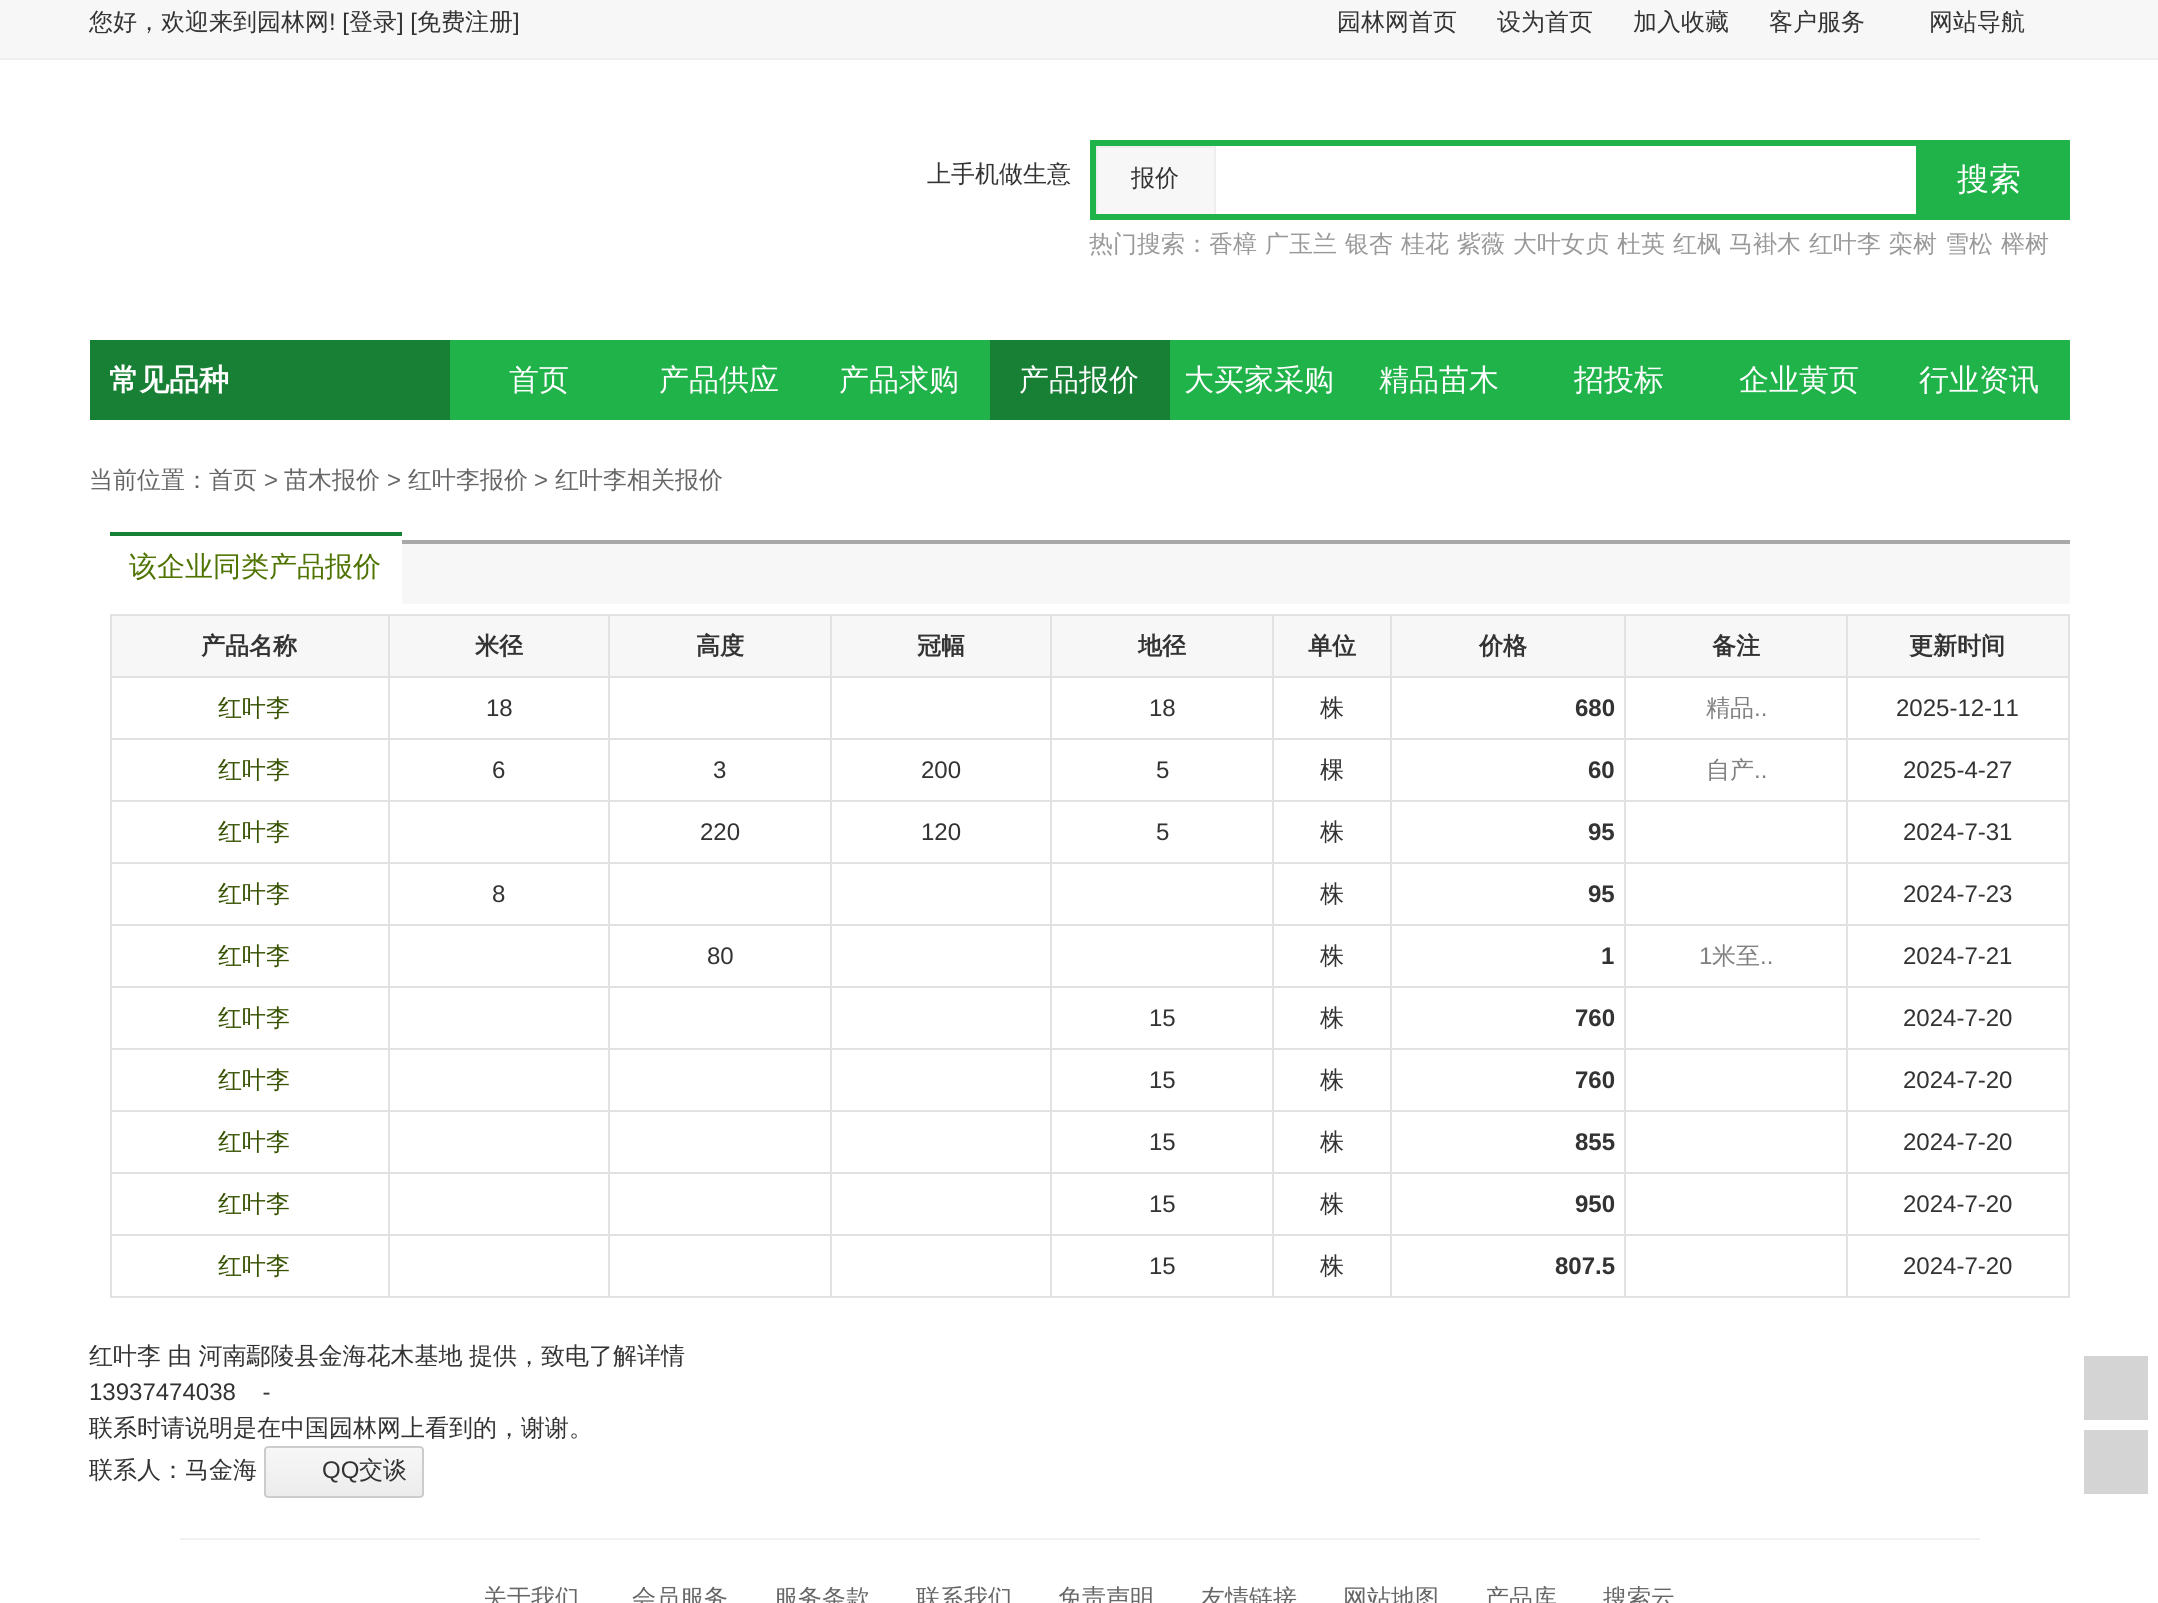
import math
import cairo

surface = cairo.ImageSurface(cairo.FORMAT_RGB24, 2158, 1603)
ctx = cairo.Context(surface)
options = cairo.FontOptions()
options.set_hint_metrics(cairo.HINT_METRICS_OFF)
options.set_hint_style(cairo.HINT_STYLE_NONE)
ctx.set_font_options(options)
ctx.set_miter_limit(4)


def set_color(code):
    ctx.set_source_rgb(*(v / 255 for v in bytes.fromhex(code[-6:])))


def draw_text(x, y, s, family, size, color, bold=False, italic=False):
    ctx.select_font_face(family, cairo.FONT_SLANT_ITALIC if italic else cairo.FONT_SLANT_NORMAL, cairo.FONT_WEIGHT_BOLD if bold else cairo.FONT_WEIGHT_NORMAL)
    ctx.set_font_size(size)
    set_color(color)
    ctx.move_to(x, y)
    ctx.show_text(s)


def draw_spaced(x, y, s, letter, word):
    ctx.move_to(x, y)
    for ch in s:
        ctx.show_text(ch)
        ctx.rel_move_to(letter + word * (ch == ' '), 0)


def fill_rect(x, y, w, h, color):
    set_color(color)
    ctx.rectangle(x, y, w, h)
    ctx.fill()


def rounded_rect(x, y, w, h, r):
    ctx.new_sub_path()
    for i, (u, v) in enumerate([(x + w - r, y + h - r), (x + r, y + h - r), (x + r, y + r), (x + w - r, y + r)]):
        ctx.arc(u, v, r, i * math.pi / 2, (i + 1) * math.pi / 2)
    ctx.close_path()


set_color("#ffffff")
ctx.paint()
fill_rect(0, 0, 2158, 58, "#f7f7f7")
fill_rect(0, 58, 2158, 2, "#eeeeee")
draw_text(89, 30, "您好，欢迎来到园林网", "WenQuanYi Zen Hei Medium", 24, "#333333")
draw_text(329, 30, "! [", "Liberation Sans", 24, "#333333")
draw_text(349, 30, "登录", "WenQuanYi Zen Hei Medium", 24, "#333333")
draw_text(397, 30, "] [", "Liberation Sans", 24, "#333333")
draw_text(417, 30, "免费注册", "WenQuanYi Zen Hei Medium", 24, "#333333")
draw_text(513, 30, "]", "Liberation Sans", 24, "#333333")
draw_text(1337, 30, "园林网首页", "WenQuanYi Zen Hei Medium", 24, "#333333")
draw_text(1497, 30, "设为首页", "WenQuanYi Zen Hei Medium", 24, "#333333")
draw_text(1633, 30, "加入收藏", "WenQuanYi Zen Hei Medium", 24, "#333333")
draw_text(1769, 30, "客户服务", "WenQuanYi Zen Hei Medium", 24, "#333333")
draw_text(1929, 30, "网站导航", "WenQuanYi Zen Hei Medium", 24, "#333333")
draw_text(927, 182, "上手机做生意", "WenQuanYi Zen Hei Medium", 24, "#333333")
fill_rect(1090, 140, 980, 80, "#20b349")
fill_rect(1098, 148, 116, 66, "#f7f7f7")
draw_text(1089, 252, "热门搜索：香樟", "WenQuanYi Zen Hei Medium", 24, "#999999")
fill_rect(450, 340, 1620, 80, "#20b349")
fill_rect(990, 340, 180, 80, "#178034")
ctx.save()
ctx.rectangle(1096, 146, 120, 68)
ctx.clip()
ctx.rectangle(1097, 147, 118, 206)
set_color("#eeeeee")
ctx.stroke()
ctx.restore()
draw_text(1131, 186, "报价", "WenQuanYi Zen Hei Medium", 24, "#333333")
fill_rect(1216, 146, 700, 68, "#ffffff")
draw_text(1957, 190, "搜索", "WenQuanYi Zen Hei Medium", 32, "#ffffff")
draw_text(1265, 252, "广玉兰", "WenQuanYi Zen Hei Medium", 24, "#999999")
draw_text(1345, 252, "银杏", "WenQuanYi Zen Hei Medium", 24, "#999999")
draw_text(1401, 252, "桂花", "WenQuanYi Zen Hei Medium", 24, "#999999")
draw_text(1457, 252, "紫薇", "WenQuanYi Zen Hei Medium", 24, "#999999")
draw_text(1513, 252, "大叶女贞", "WenQuanYi Zen Hei Medium", 24, "#999999")
draw_text(1617, 252, "杜英", "WenQuanYi Zen Hei Medium", 24, "#999999")
draw_text(1673, 252, "红枫", "WenQuanYi Zen Hei Medium", 24, "#999999")
draw_text(1729, 252, "马褂木", "WenQuanYi Zen Hei Medium", 24, "#999999")
draw_text(1809, 252, "红叶李", "WenQuanYi Zen Hei Medium", 24, "#999999")
draw_text(1889, 252, "栾树", "WenQuanYi Zen Hei Medium", 24, "#999999")
draw_text(1945, 252, "雪松", "WenQuanYi Zen Hei Medium", 24, "#999999")
draw_text(2001, 252, "榉树", "WenQuanYi Zen Hei Medium", 24, "#999999")
fill_rect(90, 340, 360, 80, "#178034")
draw_text(109, 390, "常见品种", "WenQuanYi Zen Hei", 30, "#ffffff", bold=True)
draw_text(509, 390, "首页", "WenQuanYi Zen Hei Medium", 30, "#ffffff")
draw_text(659, 390, "产品供应", "WenQuanYi Zen Hei Medium", 30, "#ffffff")
draw_text(839, 390, "产品求购", "WenQuanYi Zen Hei Medium", 30, "#ffffff")
draw_text(1019, 390, "产品报价", "WenQuanYi Zen Hei Medium", 30, "#ffffff")
draw_text(1184, 390, "大买家采购", "WenQuanYi Zen Hei Medium", 30, "#ffffff")
draw_text(1379, 390, "精品苗木", "WenQuanYi Zen Hei Medium", 30, "#ffffff")
draw_text(1574, 390, "招投标", "WenQuanYi Zen Hei Medium", 30, "#ffffff")
draw_text(1739, 390, "企业黄页", "WenQuanYi Zen Hei Medium", 30, "#ffffff")
draw_text(1919, 390, "行业资讯", "WenQuanYi Zen Hei Medium", 30, "#ffffff")
draw_text(89, 488, "当前位置：首页", "WenQuanYi Zen Hei Medium", 24, "#666666")
draw_text(264, 488, ">", "Liberation Sans", 24, "#666666")
draw_text(284, 488, "苗木报价", "WenQuanYi Zen Hei Medium", 24, "#666666")
draw_text(387, 488, ">", "Liberation Sans", 24, "#666666")
draw_text(408, 488, "红叶李报价", "WenQuanYi Zen Hei Medium", 24, "#666666")
draw_text(534, 488, ">", "Liberation Sans", 24, "#666666")
draw_text(555, 488, "红叶李相关报价", "WenQuanYi Zen Hei Medium", 24, "#666666")
fill_rect(402, 544, 1668, 60, "#f7f7f7")
fill_rect(402, 540, 1668, 4, "#a8a8a8")
fill_rect(110, 532, 292, 4, "#178034")
draw_text(129, 576, "该企业同类产品报价", "WenQuanYi Zen Hei Medium", 28, "#4e7300")
fill_rect(110, 614, 1960, 2, "#e2e2e2")
fill_rect(2068, 614, 2, 684, "#e2e2e2")
fill_rect(110, 1296, 1960, 2, "#e2e2e2")
fill_rect(110, 614, 2, 684, "#e2e2e2")
fill_rect(112, 616, 276, 60, "#f7f7f7")
draw_text(201, 654, "产品名称", "WenQuanYi Zen Hei", 24, "#333333", bold=True)
fill_rect(390, 616, 218, 60, "#f7f7f7")
fill_rect(1846, 676, 224, 2, "#e2e2e2")
fill_rect(1846, 738, 224, 2, "#e2e2e2")
fill_rect(1846, 800, 224, 2, "#e2e2e2")
fill_rect(1846, 862, 224, 2, "#e2e2e2")
fill_rect(1846, 924, 224, 2, "#e2e2e2")
fill_rect(1846, 986, 224, 2, "#e2e2e2")
fill_rect(1846, 1048, 224, 2, "#e2e2e2")
fill_rect(1846, 1110, 224, 2, "#e2e2e2")
fill_rect(1846, 1172, 224, 2, "#e2e2e2")
fill_rect(1846, 1234, 224, 2, "#e2e2e2")
fill_rect(1846, 1234, 2, 64, "#e2e2e2")
fill_rect(1624, 1234, 224, 2, "#e2e2e2")
fill_rect(1846, 1172, 2, 64, "#e2e2e2")
fill_rect(1624, 1172, 224, 2, "#e2e2e2")
fill_rect(1846, 1110, 2, 64, "#e2e2e2")
fill_rect(1624, 1110, 224, 2, "#e2e2e2")
fill_rect(1846, 1048, 2, 64, "#e2e2e2")
fill_rect(1624, 1048, 224, 2, "#e2e2e2")
fill_rect(1846, 986, 2, 64, "#e2e2e2")
fill_rect(1624, 986, 224, 2, "#e2e2e2")
fill_rect(1846, 924, 2, 64, "#e2e2e2")
fill_rect(1624, 924, 224, 2, "#e2e2e2")
fill_rect(1846, 862, 2, 64, "#e2e2e2")
fill_rect(1624, 862, 224, 2, "#e2e2e2")
fill_rect(1846, 800, 2, 64, "#e2e2e2")
fill_rect(1624, 800, 224, 2, "#e2e2e2")
fill_rect(1846, 738, 2, 64, "#e2e2e2")
fill_rect(1624, 738, 224, 2, "#e2e2e2")
fill_rect(1846, 676, 2, 64, "#e2e2e2")
fill_rect(1624, 676, 224, 2, "#e2e2e2")
fill_rect(1624, 1234, 2, 64, "#e2e2e2")
fill_rect(1390, 1234, 236, 2, "#e2e2e2")
fill_rect(1624, 1172, 2, 64, "#e2e2e2")
fill_rect(1390, 1172, 236, 2, "#e2e2e2")
fill_rect(1624, 1110, 2, 64, "#e2e2e2")
fill_rect(1390, 1110, 236, 2, "#e2e2e2")
fill_rect(1624, 1048, 2, 64, "#e2e2e2")
fill_rect(1390, 1048, 236, 2, "#e2e2e2")
fill_rect(1624, 986, 2, 64, "#e2e2e2")
fill_rect(1390, 986, 236, 2, "#e2e2e2")
fill_rect(1624, 924, 2, 64, "#e2e2e2")
fill_rect(1390, 924, 236, 2, "#e2e2e2")
fill_rect(1624, 862, 2, 64, "#e2e2e2")
fill_rect(1390, 862, 236, 2, "#e2e2e2")
fill_rect(1624, 800, 2, 64, "#e2e2e2")
fill_rect(1390, 800, 236, 2, "#e2e2e2")
fill_rect(1624, 738, 2, 64, "#e2e2e2")
fill_rect(1390, 738, 236, 2, "#e2e2e2")
fill_rect(1624, 676, 2, 64, "#e2e2e2")
fill_rect(1390, 676, 236, 2, "#e2e2e2")
fill_rect(1390, 1234, 2, 64, "#e2e2e2")
fill_rect(1272, 1234, 120, 2, "#e2e2e2")
fill_rect(1390, 1172, 2, 64, "#e2e2e2")
fill_rect(1272, 1172, 120, 2, "#e2e2e2")
fill_rect(1390, 1110, 2, 64, "#e2e2e2")
fill_rect(1272, 1110, 120, 2, "#e2e2e2")
fill_rect(1390, 1048, 2, 64, "#e2e2e2")
fill_rect(1272, 1048, 120, 2, "#e2e2e2")
fill_rect(1390, 986, 2, 64, "#e2e2e2")
fill_rect(1272, 986, 120, 2, "#e2e2e2")
fill_rect(1390, 924, 2, 64, "#e2e2e2")
fill_rect(1272, 924, 120, 2, "#e2e2e2")
fill_rect(1390, 862, 2, 64, "#e2e2e2")
fill_rect(1272, 862, 120, 2, "#e2e2e2")
fill_rect(1390, 800, 2, 64, "#e2e2e2")
fill_rect(1272, 800, 120, 2, "#e2e2e2")
fill_rect(1390, 738, 2, 64, "#e2e2e2")
fill_rect(1272, 738, 120, 2, "#e2e2e2")
fill_rect(1390, 676, 2, 64, "#e2e2e2")
fill_rect(1272, 676, 120, 2, "#e2e2e2")
fill_rect(1272, 1234, 2, 64, "#e2e2e2")
fill_rect(1050, 1234, 224, 2, "#e2e2e2")
fill_rect(1272, 1172, 2, 64, "#e2e2e2")
fill_rect(1050, 1172, 224, 2, "#e2e2e2")
fill_rect(1272, 1110, 2, 64, "#e2e2e2")
fill_rect(1050, 1110, 224, 2, "#e2e2e2")
fill_rect(1272, 1048, 2, 64, "#e2e2e2")
fill_rect(1050, 1048, 224, 2, "#e2e2e2")
fill_rect(1272, 986, 2, 64, "#e2e2e2")
fill_rect(1050, 986, 224, 2, "#e2e2e2")
fill_rect(1272, 924, 2, 64, "#e2e2e2")
fill_rect(1050, 924, 224, 2, "#e2e2e2")
fill_rect(1272, 862, 2, 64, "#e2e2e2")
fill_rect(1050, 862, 224, 2, "#e2e2e2")
fill_rect(1272, 800, 2, 64, "#e2e2e2")
fill_rect(1050, 800, 224, 2, "#e2e2e2")
fill_rect(1272, 738, 2, 64, "#e2e2e2")
fill_rect(1050, 738, 224, 2, "#e2e2e2")
fill_rect(1272, 676, 2, 64, "#e2e2e2")
fill_rect(1050, 676, 224, 2, "#e2e2e2")
fill_rect(1050, 1234, 2, 64, "#e2e2e2")
fill_rect(830, 1234, 222, 2, "#e2e2e2")
fill_rect(1050, 1172, 2, 64, "#e2e2e2")
fill_rect(830, 1172, 222, 2, "#e2e2e2")
fill_rect(1050, 1110, 2, 64, "#e2e2e2")
fill_rect(830, 1110, 222, 2, "#e2e2e2")
fill_rect(1050, 1048, 2, 64, "#e2e2e2")
fill_rect(830, 1048, 222, 2, "#e2e2e2")
fill_rect(1050, 986, 2, 64, "#e2e2e2")
fill_rect(830, 986, 222, 2, "#e2e2e2")
fill_rect(1050, 924, 2, 64, "#e2e2e2")
fill_rect(830, 924, 222, 2, "#e2e2e2")
fill_rect(1050, 862, 2, 64, "#e2e2e2")
fill_rect(830, 862, 222, 2, "#e2e2e2")
fill_rect(1050, 800, 2, 64, "#e2e2e2")
fill_rect(830, 800, 222, 2, "#e2e2e2")
fill_rect(1050, 738, 2, 64, "#e2e2e2")
fill_rect(830, 738, 222, 2, "#e2e2e2")
fill_rect(1050, 676, 2, 64, "#e2e2e2")
fill_rect(830, 676, 222, 2, "#e2e2e2")
fill_rect(830, 1234, 2, 64, "#e2e2e2")
fill_rect(608, 1234, 224, 2, "#e2e2e2")
fill_rect(830, 1172, 2, 64, "#e2e2e2")
fill_rect(608, 1172, 224, 2, "#e2e2e2")
fill_rect(830, 1110, 2, 64, "#e2e2e2")
fill_rect(608, 1110, 224, 2, "#e2e2e2")
fill_rect(830, 1048, 2, 64, "#e2e2e2")
fill_rect(608, 1048, 224, 2, "#e2e2e2")
fill_rect(830, 986, 2, 64, "#e2e2e2")
fill_rect(608, 986, 224, 2, "#e2e2e2")
fill_rect(830, 924, 2, 64, "#e2e2e2")
fill_rect(608, 924, 224, 2, "#e2e2e2")
fill_rect(830, 862, 2, 64, "#e2e2e2")
fill_rect(608, 862, 224, 2, "#e2e2e2")
fill_rect(830, 800, 2, 64, "#e2e2e2")
fill_rect(608, 800, 224, 2, "#e2e2e2")
fill_rect(830, 738, 2, 64, "#e2e2e2")
fill_rect(608, 738, 224, 2, "#e2e2e2")
fill_rect(830, 676, 2, 64, "#e2e2e2")
fill_rect(608, 676, 224, 2, "#e2e2e2")
fill_rect(608, 1234, 2, 64, "#e2e2e2")
fill_rect(388, 1234, 222, 2, "#e2e2e2")
fill_rect(608, 1172, 2, 64, "#e2e2e2")
fill_rect(388, 1172, 222, 2, "#e2e2e2")
fill_rect(608, 1110, 2, 64, "#e2e2e2")
fill_rect(388, 1110, 222, 2, "#e2e2e2")
fill_rect(608, 1048, 2, 64, "#e2e2e2")
fill_rect(388, 1048, 222, 2, "#e2e2e2")
fill_rect(608, 986, 2, 64, "#e2e2e2")
fill_rect(388, 986, 222, 2, "#e2e2e2")
fill_rect(608, 924, 2, 64, "#e2e2e2")
fill_rect(388, 924, 222, 2, "#e2e2e2")
fill_rect(608, 862, 2, 64, "#e2e2e2")
fill_rect(388, 862, 222, 2, "#e2e2e2")
fill_rect(608, 800, 2, 64, "#e2e2e2")
fill_rect(388, 800, 222, 2, "#e2e2e2")
fill_rect(608, 738, 2, 64, "#e2e2e2")
fill_rect(388, 738, 222, 2, "#e2e2e2")
fill_rect(608, 676, 2, 64, "#e2e2e2")
fill_rect(388, 676, 222, 2, "#e2e2e2")
fill_rect(388, 1234, 2, 64, "#e2e2e2")
fill_rect(110, 1234, 280, 2, "#e2e2e2")
fill_rect(388, 1172, 2, 64, "#e2e2e2")
fill_rect(110, 1172, 280, 2, "#e2e2e2")
fill_rect(388, 1110, 2, 64, "#e2e2e2")
fill_rect(110, 1110, 280, 2, "#e2e2e2")
fill_rect(388, 1048, 2, 64, "#e2e2e2")
fill_rect(110, 1048, 280, 2, "#e2e2e2")
fill_rect(388, 986, 2, 64, "#e2e2e2")
fill_rect(110, 986, 280, 2, "#e2e2e2")
fill_rect(388, 924, 2, 64, "#e2e2e2")
fill_rect(110, 924, 280, 2, "#e2e2e2")
fill_rect(388, 862, 2, 64, "#e2e2e2")
fill_rect(110, 862, 280, 2, "#e2e2e2")
fill_rect(388, 800, 2, 64, "#e2e2e2")
fill_rect(110, 800, 280, 2, "#e2e2e2")
fill_rect(388, 738, 2, 64, "#e2e2e2")
fill_rect(110, 738, 280, 2, "#e2e2e2")
fill_rect(388, 676, 2, 64, "#e2e2e2")
fill_rect(110, 676, 280, 2, "#e2e2e2")
fill_rect(388, 614, 2, 64, "#e2e2e2")
draw_text(475, 654, "米径", "WenQuanYi Zen Hei", 24, "#333333", bold=True)
fill_rect(610, 616, 220, 60, "#f7f7f7")
fill_rect(608, 614, 2, 64, "#e2e2e2")
draw_text(696, 654, "高度", "WenQuanYi Zen Hei", 24, "#333333", bold=True)
fill_rect(832, 616, 218, 60, "#f7f7f7")
fill_rect(830, 614, 2, 64, "#e2e2e2")
draw_text(917, 654, "冠幅", "WenQuanYi Zen Hei", 24, "#333333", bold=True)
fill_rect(1052, 616, 220, 60, "#f7f7f7")
fill_rect(1050, 614, 2, 64, "#e2e2e2")
draw_text(1138, 654, "地径", "WenQuanYi Zen Hei", 24, "#333333", bold=True)
fill_rect(1274, 616, 116, 60, "#f7f7f7")
fill_rect(1272, 614, 2, 64, "#e2e2e2")
draw_text(1308, 654, "单位", "WenQuanYi Zen Hei", 24, "#333333", bold=True)
fill_rect(1392, 616, 232, 60, "#f7f7f7")
fill_rect(1390, 614, 2, 64, "#e2e2e2")
draw_text(1479, 654, "价格", "WenQuanYi Zen Hei", 24, "#333333", bold=True)
fill_rect(1626, 616, 220, 60, "#f7f7f7")
fill_rect(1624, 614, 2, 64, "#e2e2e2")
draw_text(1712, 654, "备注", "WenQuanYi Zen Hei", 24, "#333333", bold=True)
fill_rect(1848, 616, 220, 60, "#f7f7f7")
fill_rect(1846, 614, 2, 64, "#e2e2e2")
draw_text(1909, 654, "更新时间", "WenQuanYi Zen Hei", 24, "#333333", bold=True)
draw_text(218, 716, "红叶李", "WenQuanYi Zen Hei Medium", 24, "#365100")
draw_text(486, 716, "18", "Liberation Sans", 24, "#333333")
draw_text(1149, 716, "18", "Liberation Sans", 24, "#333333")
draw_text(1320, 716, "株", "WenQuanYi Zen Hei Medium", 24, "#333333")
draw_text(1575, 716, "680", "Liberation Sans", 24, "#333333", bold=True)
draw_text(1706, 716, "精品", "WenQuanYi Zen Hei Medium", 24, "#808080")
draw_text(1754, 716, "..", "Liberation Sans", 24, "#808080")
draw_text(1896, 716, "2025-12-11", "Liberation Sans", 24, "#333333")
draw_text(218, 778, "红叶李", "WenQuanYi Zen Hei Medium", 24, "#365100")
draw_text(492, 778, "6", "Liberation Sans", 24, "#333333")
draw_text(713, 778, "3", "Liberation Sans", 24, "#333333")
draw_text(921, 778, "200", "Liberation Sans", 24, "#333333")
draw_text(1156, 778, "5", "Liberation Sans", 24, "#333333")
draw_text(1320, 778, "棵", "WenQuanYi Zen Hei Medium", 24, "#333333")
draw_text(1588, 778, "60", "Liberation Sans", 24, "#333333", bold=True)
draw_text(1706, 778, "自产", "WenQuanYi Zen Hei Medium", 24, "#808080")
draw_text(1754, 778, "..", "Liberation Sans", 24, "#808080")
draw_text(1903, 778, "2025-4-27", "Liberation Sans", 24, "#333333")
draw_text(218, 840, "红叶李", "WenQuanYi Zen Hei Medium", 24, "#365100")
draw_text(700, 840, "220", "Liberation Sans", 24, "#333333")
draw_text(921, 840, "120", "Liberation Sans", 24, "#333333")
draw_text(1156, 840, "5", "Liberation Sans", 24, "#333333")
draw_text(1320, 840, "株", "WenQuanYi Zen Hei Medium", 24, "#333333")
draw_text(1588, 840, "95", "Liberation Sans", 24, "#333333", bold=True)
draw_text(1903, 840, "2024-7-31", "Liberation Sans", 24, "#333333")
draw_text(218, 902, "红叶李", "WenQuanYi Zen Hei Medium", 24, "#365100")
draw_text(492, 902, "8", "Liberation Sans", 24, "#333333")
draw_text(1320, 902, "株", "WenQuanYi Zen Hei Medium", 24, "#333333")
draw_text(1588, 902, "95", "Liberation Sans", 24, "#333333", bold=True)
draw_text(1903, 902, "2024-7-23", "Liberation Sans", 24, "#333333")
draw_text(218, 964, "红叶李", "WenQuanYi Zen Hei Medium", 24, "#365100")
draw_text(707, 964, "80", "Liberation Sans", 24, "#333333")
draw_text(1320, 964, "株", "WenQuanYi Zen Hei Medium", 24, "#333333")
draw_text(1601, 964, "1", "Liberation Sans", 24, "#333333", bold=True)
draw_text(1699, 964, "1", "Liberation Sans", 24, "#808080")
draw_text(1712, 964, "米至", "WenQuanYi Zen Hei Medium", 24, "#808080")
draw_text(1760, 964, "..", "Liberation Sans", 24, "#808080")
draw_text(1903, 964, "2024-7-21", "Liberation Sans", 24, "#333333")
draw_text(218, 1026, "红叶李", "WenQuanYi Zen Hei Medium", 24, "#365100")
draw_text(1149, 1026, "15", "Liberation Sans", 24, "#333333")
draw_text(1320, 1026, "株", "WenQuanYi Zen Hei Medium", 24, "#333333")
draw_text(1575, 1026, "760", "Liberation Sans", 24, "#333333", bold=True)
draw_text(1903, 1026, "2024-7-20", "Liberation Sans", 24, "#333333")
draw_text(218, 1088, "红叶李", "WenQuanYi Zen Hei Medium", 24, "#365100")
draw_text(1149, 1088, "15", "Liberation Sans", 24, "#333333")
draw_text(1320, 1088, "株", "WenQuanYi Zen Hei Medium", 24, "#333333")
draw_text(1575, 1088, "760", "Liberation Sans", 24, "#333333", bold=True)
draw_text(1903, 1088, "2024-7-20", "Liberation Sans", 24, "#333333")
draw_text(218, 1150, "红叶李", "WenQuanYi Zen Hei Medium", 24, "#365100")
draw_text(1149, 1150, "15", "Liberation Sans", 24, "#333333")
draw_text(1320, 1150, "株", "WenQuanYi Zen Hei Medium", 24, "#333333")
draw_text(1575, 1150, "855", "Liberation Sans", 24, "#333333", bold=True)
draw_text(1903, 1150, "2024-7-20", "Liberation Sans", 24, "#333333")
draw_text(218, 1212, "红叶李", "WenQuanYi Zen Hei Medium", 24, "#365100")
draw_text(1149, 1212, "15", "Liberation Sans", 24, "#333333")
draw_text(1320, 1212, "株", "WenQuanYi Zen Hei Medium", 24, "#333333")
draw_text(1575, 1212, "950", "Liberation Sans", 24, "#333333", bold=True)
draw_text(1903, 1212, "2024-7-20", "Liberation Sans", 24, "#333333")
draw_text(218, 1274, "红叶李", "WenQuanYi Zen Hei Medium", 24, "#365100")
draw_text(1149, 1274, "15", "Liberation Sans", 24, "#333333")
draw_text(1320, 1274, "株", "WenQuanYi Zen Hei Medium", 24, "#333333")
draw_text(1555, 1274, "807.5", "Liberation Sans", 24, "#333333", bold=True)
draw_text(1903, 1274, "2024-7-20", "Liberation Sans", 24, "#333333")
ctx.select_font_face("WenQuanYi Zen Hei Medium")
draw_spaced(89, 1364, "红叶李 由 河南鄢陵县金海花木基地 提供，致电了解详情", 0, -0.5)
draw_text(89, 1400, "13937474038    -", "Liberation Sans", 24, "#333333")
draw_text(89, 1436, "联系时请说明是在中国园林网上看到的，谢谢。", "WenQuanYi Zen Hei Medium", 24, "#333333")
draw_text(89, 1478, "联系人：马金海", "WenQuanYi Zen Hei Medium", 24, "#333333")
ctx.save()
rounded_rect(264, 1446, 160, 52, 4)
ctx.clip()
gradient = cairo.LinearGradient(344, 1448, 344, 1496)
gradient.add_color_stop_rgba(0, 0.969, 0.969, 0.969, 1)
gradient.add_color_stop_rgba(1, 0.925, 0.925, 0.925, 1)
ctx.set_source(gradient)
ctx.rectangle(264, 1448, 160, 48)
ctx.fill()
ctx.restore()
rounded_rect(265, 1447, 158, 50, 3)
set_color("#cccccc")
ctx.stroke()
draw_text(322, 1478, "QQ", "Liberation Sans", 24, "#333333")
draw_text(359, 1478, "交谈", "WenQuanYi Zen Hei Medium", 24, "#333333")
fill_rect(2084, 1356, 64, 64, "#d4d4d4")
fill_rect(2084, 1430, 64, 64, "#d4d4d4")
fill_rect(180, 1538, 1800, 2, "#f1f1f1")
draw_text(483, 1606, "关于我们", "WenQuanYi Zen Hei Medium", 24, "#666666")
draw_text(632, 1606, "会员服务", "WenQuanYi Zen Hei Medium", 24, "#666666")
draw_text(774, 1606, "服务条款", "WenQuanYi Zen Hei Medium", 24, "#666666")
draw_text(916, 1606, "联系我们", "WenQuanYi Zen Hei Medium", 24, "#666666")
draw_text(1058, 1606, "免责声明", "WenQuanYi Zen Hei Medium", 24, "#666666")
draw_text(1201, 1606, "友情链接", "WenQuanYi Zen Hei Medium", 24, "#666666")
draw_text(1343, 1606, "网站地图", "WenQuanYi Zen Hei Medium", 24, "#666666")
draw_text(1485, 1606, "产品库", "WenQuanYi Zen Hei Medium", 24, "#666666")
draw_text(1603, 1606, "搜索云", "WenQuanYi Zen Hei Medium", 24, "#666666")
surface.write_to_png("output.png")
